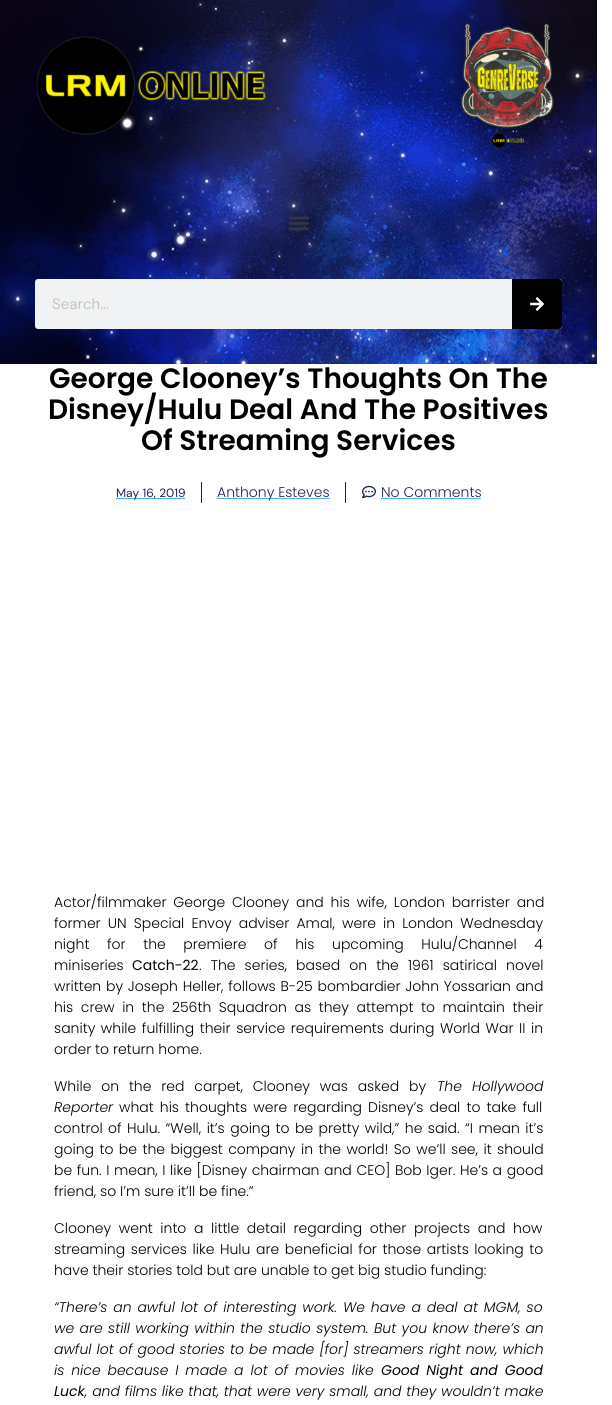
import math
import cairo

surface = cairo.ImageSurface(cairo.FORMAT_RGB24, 612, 1405)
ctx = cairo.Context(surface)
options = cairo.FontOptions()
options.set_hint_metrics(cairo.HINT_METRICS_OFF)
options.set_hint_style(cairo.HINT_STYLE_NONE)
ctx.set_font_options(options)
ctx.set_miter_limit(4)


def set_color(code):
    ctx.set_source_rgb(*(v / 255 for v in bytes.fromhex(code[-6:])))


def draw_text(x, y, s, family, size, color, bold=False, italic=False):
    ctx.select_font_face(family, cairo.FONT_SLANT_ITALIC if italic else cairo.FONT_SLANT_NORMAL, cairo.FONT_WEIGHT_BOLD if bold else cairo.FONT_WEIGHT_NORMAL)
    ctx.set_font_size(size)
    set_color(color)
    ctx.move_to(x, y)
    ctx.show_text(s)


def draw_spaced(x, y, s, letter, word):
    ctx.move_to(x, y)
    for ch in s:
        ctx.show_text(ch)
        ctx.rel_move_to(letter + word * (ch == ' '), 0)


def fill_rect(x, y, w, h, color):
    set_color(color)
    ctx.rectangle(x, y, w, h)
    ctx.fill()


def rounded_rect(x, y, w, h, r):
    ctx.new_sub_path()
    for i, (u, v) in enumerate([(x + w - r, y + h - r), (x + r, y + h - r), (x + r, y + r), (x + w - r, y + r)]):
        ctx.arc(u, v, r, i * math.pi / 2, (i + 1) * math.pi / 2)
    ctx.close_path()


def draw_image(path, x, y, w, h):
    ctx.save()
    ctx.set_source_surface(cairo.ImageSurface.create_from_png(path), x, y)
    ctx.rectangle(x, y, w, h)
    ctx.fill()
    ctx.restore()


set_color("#ffffff")
ctx.paint()
draw_image("assets/img1.png", 0, 0, 597, 364)
draw_image("assets/img2.png", 36, 23, 518, 125)
ctx.set_source_rgba(0, 0, 0, 0.05)
ctx.rectangle(282, 206, 33, 33)
ctx.fill()
draw_image("assets/img3.png", 289, 216, 20, 15)
set_color("#f1f2f3")
rounded_rect(35, 279, 527, 50, 3)
ctx.fill()
draw_text(52, 309, "Search...", "DM Sans", 15, "#c3c4c4")
set_color("#000000")
ctx.new_path()
ctx.move_to(512, 279)
ctx.line_to(559, 279)
ctx.curve_to(560.5, 279, 562, 280.5, 562, 282)
ctx.line_to(562, 326)
ctx.curve_to(562, 327.5, 560.5, 329, 559, 329)
ctx.line_to(512, 329)
ctx.close_path()
ctx.fill()
draw_image("assets/img4.png", 530, 297, 14, 14)
draw_text(49, 388, "George Clooney’s Thoughts On The", "Poppins SemiBold", 28, "#000000")
draw_text(48, 419, "Disney/Hulu Deal And The Positives", "Poppins SemiBold", 28, "#000000")
draw_text(141, 450, "Of Streaming Services", "Poppins SemiBold", 28, "#000000")
fill_rect(116, 498, 69, 1, "#47affd")
draw_text(116, 497, "May 16, 2019", "DM Sans", 12, "#1c244b")
fill_rect(201, 482, 1, 21, "#1c244b")
fill_rect(217, 498, 113, 1, "#47affd")
draw_text(217, 497, "Anthony Esteves", "Poppins Light", 14, "#1c244b")
fill_rect(345, 482, 1, 21, "#1c244b")
draw_image("assets/img5.png", 362, 485, 14, 14)
draw_text(381, 497, "No Comments", "Poppins Light", 14, "#1c244b")
fill_rect(381, 498, 100, 1, "#47affd")
set_color("#000000")
draw_spaced(54, 907, "Actor/filmmaker George Clooney and his wife, London barrister and", 0, 3)
draw_spaced(54, 928, "former UN Special Envoy adviser Amal, were in London Wednesday", 0, 3.25)
draw_spaced(54, 949, "night for the premiere of his upcoming Hulu/Channel 4", 0, 13.75)
draw_text(54, 970, "miniseries", "Poppins Light", 14, "#000000")
draw_text(132, 970, "Catch-22", "Poppins", 14, "#000000")
ctx.select_font_face("Poppins Light")
draw_spaced(199, 970, ". The series, based on the 1961 satirical novel", 0, 5.25)
draw_spaced(54, 991, "written by Joseph Heller, follows B-25 bombardier John Yossarian and", 0, 0.9)
draw_spaced(54, 1012, "his crew in the 256th Squadron as they attempt to maintain their", 0, 3.75)
draw_spaced(54, 1033, "sanity while fulfilling their service requirements during World War II in", 0, 1.75)
draw_text(54, 1054, "order to return home.", "Poppins Light", 14, "#000000")
draw_spaced(54, 1091, "While on the red carpet, Clooney was asked by", 0, 6)
ctx.select_font_face("Poppins Light", cairo.FONT_SLANT_ITALIC)
draw_spaced(437, 1091, "The Hollywood", 0, 6)
draw_text(54, 1112, "Reporter", "Poppins Light", 14, "#000000", italic=True)
ctx.select_font_face("Poppins Light")
draw_spaced(119, 1112, "what his thoughts were regarding Disney’s deal to take full", 0, 2.25)
draw_spaced(54, 1133, "control of Hulu. “Well, it’s going to be pretty wild,” he said. “I mean it’s", 0, 1.6)
draw_spaced(54, 1154, "going to be the biggest company in the world! So we’ll see, it should", 0, 1.6)
draw_spaced(54, 1175, "be fun. I mean, I like [Disney chairman and CEO] Bob Iger. He’s a good", 0, 0.75)
draw_text(54, 1196, "friend, so I’m sure it’ll be fine.”", "Poppins Light", 14, "#000000")
draw_spaced(54, 1233, "Clooney went into a little detail regarding other projects and how", 0, 3.75)
draw_spaced(54, 1254, "streaming services like Hulu are beneficial for those artists looking to", 0, 1.75)
draw_text(54, 1275, "have their stories told but are unable to get big studio funding:", "Poppins Light", 14, "#000000")
ctx.select_font_face("Poppins Light", cairo.FONT_SLANT_ITALIC)
draw_spaced(54, 1312, "“There’s an awful lot of interesting work. We have a deal at MGM, so", 0, 1.75)
draw_spaced(54, 1333, "we are still working within the studio system. But you know there’s an", 0, 1.25)
draw_spaced(54, 1354, "awful lot of good stories to be made [for] streamers right now, which", 0, 1)
draw_spaced(54, 1375, "is nice because I made a lot of movies like", 0, 2.75)
ctx.select_font_face("Poppins", cairo.FONT_SLANT_ITALIC)
draw_spaced(381, 1375, "Good Night and Good", 0, 2.75)
draw_text(54, 1396, "Luck", "Poppins", 14, "#000000", italic=True)
ctx.select_font_face("Poppins Light", cairo.FONT_SLANT_ITALIC)
draw_spaced(85, 1396, ", and films like that, that were very small, and they wouldn’t make", 0, 0.6)
surface.write_to_png("output.png")
